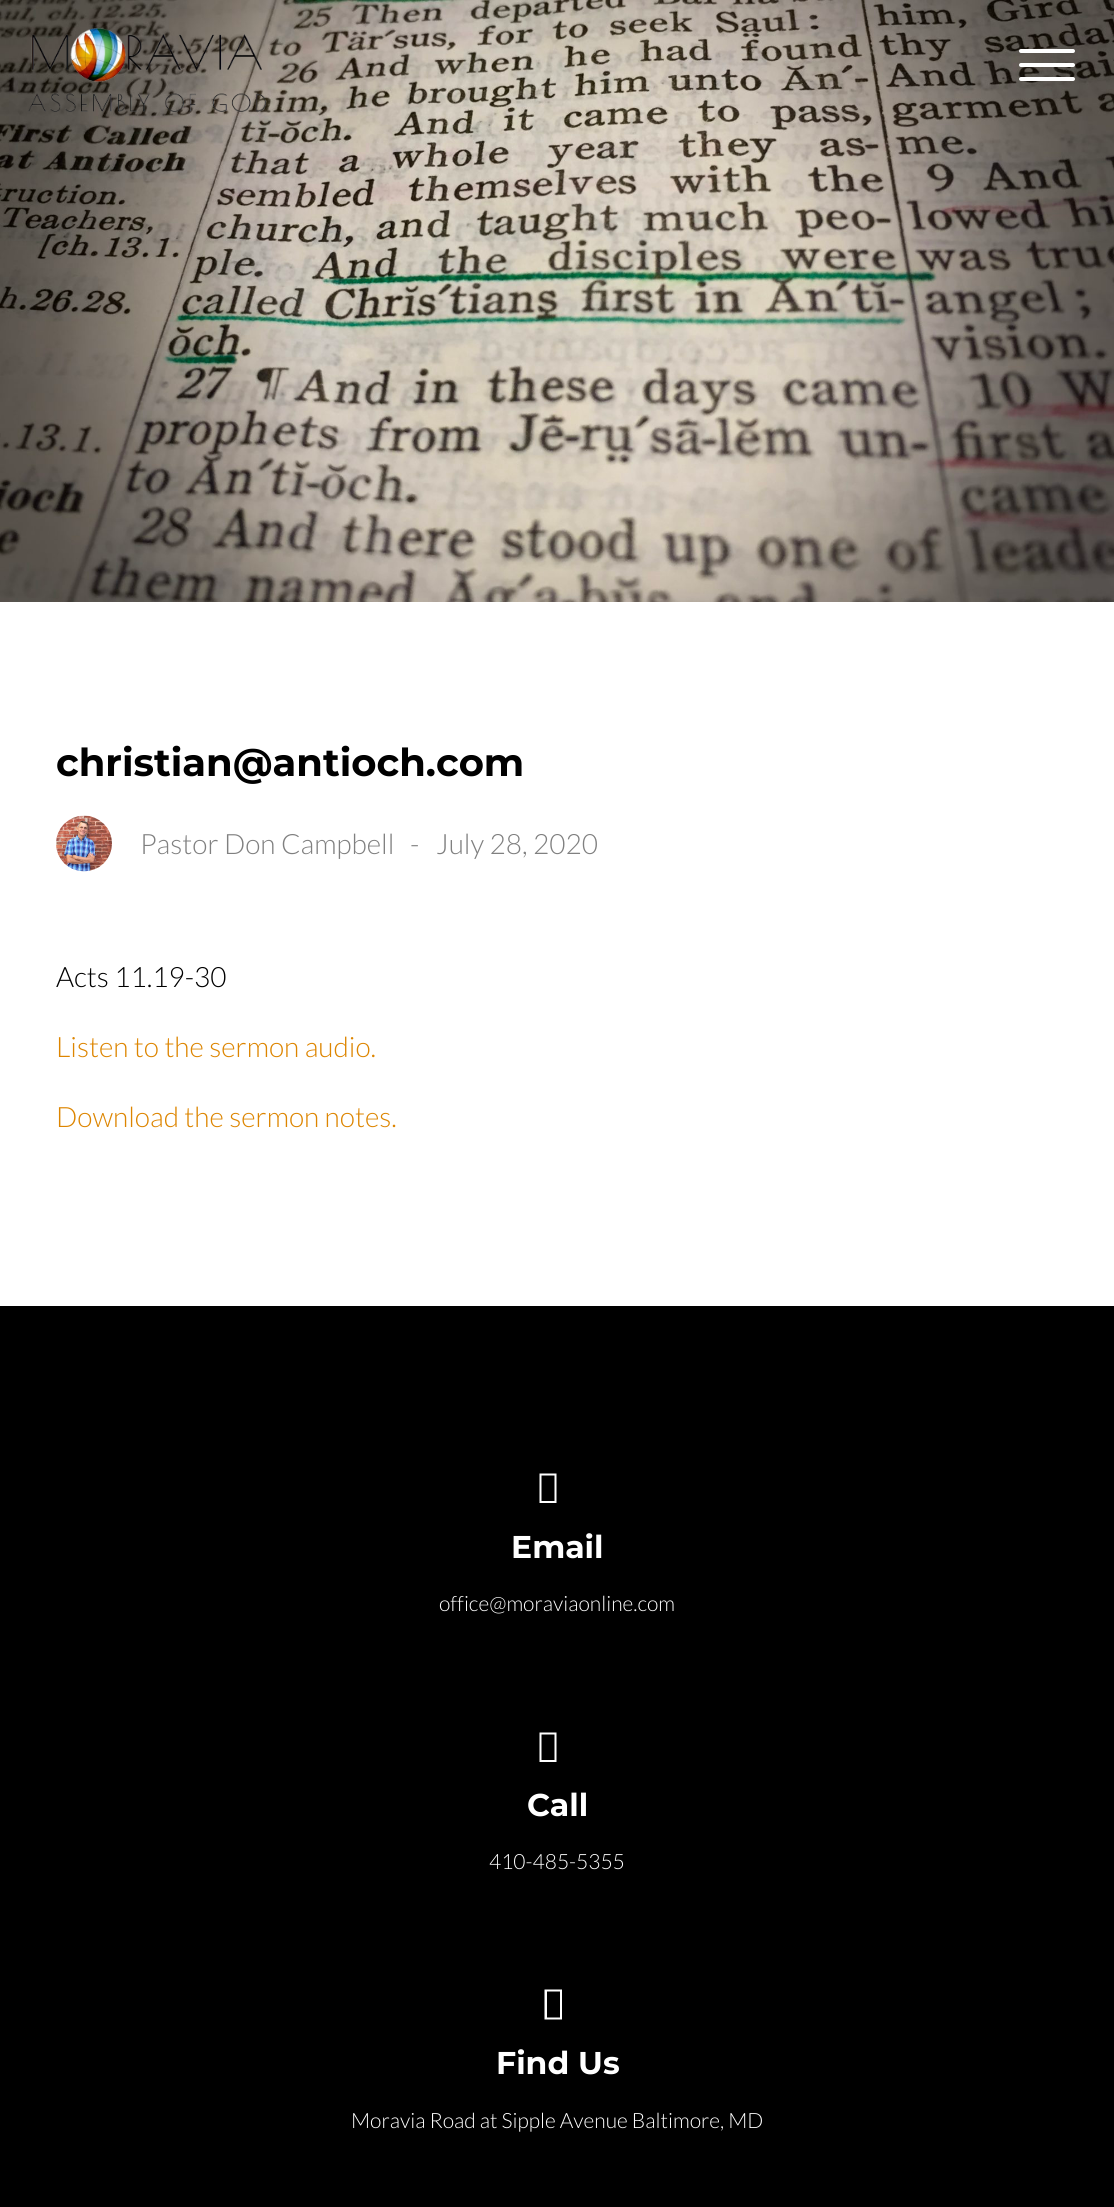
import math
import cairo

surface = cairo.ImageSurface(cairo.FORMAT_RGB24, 1114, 2207)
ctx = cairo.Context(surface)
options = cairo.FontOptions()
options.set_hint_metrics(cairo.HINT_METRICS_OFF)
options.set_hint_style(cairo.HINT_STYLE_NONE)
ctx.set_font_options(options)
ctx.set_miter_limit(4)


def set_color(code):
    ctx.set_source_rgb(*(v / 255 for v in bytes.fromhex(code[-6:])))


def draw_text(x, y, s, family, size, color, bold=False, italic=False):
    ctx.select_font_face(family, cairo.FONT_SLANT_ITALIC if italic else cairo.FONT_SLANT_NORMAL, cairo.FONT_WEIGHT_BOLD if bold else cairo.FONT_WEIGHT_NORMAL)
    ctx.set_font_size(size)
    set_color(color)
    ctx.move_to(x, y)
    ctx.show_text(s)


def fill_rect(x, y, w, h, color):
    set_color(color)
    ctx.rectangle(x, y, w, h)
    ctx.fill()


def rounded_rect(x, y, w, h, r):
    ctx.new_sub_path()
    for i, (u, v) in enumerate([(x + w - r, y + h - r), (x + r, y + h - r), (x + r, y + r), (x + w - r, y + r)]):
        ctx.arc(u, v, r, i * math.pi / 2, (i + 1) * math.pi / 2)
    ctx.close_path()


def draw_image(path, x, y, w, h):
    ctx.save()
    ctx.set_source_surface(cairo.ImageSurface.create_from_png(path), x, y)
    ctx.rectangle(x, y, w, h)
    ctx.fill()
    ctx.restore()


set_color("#ffffff")
ctx.paint()
draw_image("assets/img1.png", 0, 0, 1114, 602)
draw_image("assets/img2.png", 28, 28, 238, 84)
set_color("#ffffff")
rounded_rect(1019, 49, 56, 4, 2)
ctx.fill()
rounded_rect(1019, 63, 56, 4, 2)
ctx.fill()
rounded_rect(1019, 77, 56, 4, 2)
ctx.fill()
draw_text(56, 776, "christian@antioch.com", "Montserrat", 38.5, "#000000", bold=True)
draw_image("assets/img3.png", 56, 815, 56, 57)
draw_text(140, 854, "Pastor Don Campbell", "Lato Light", 28, "#808080")
draw_text(410, 854, "-", "Lato Light", 28, "#808080")
draw_text(436, 854, "July 28, 2020", "Lato Light", 28, "#808080")
draw_text(56, 987, "Acts 11.19-30", "Lato Light", 28, "#000000")
draw_text(56, 1057, "Listen to the sermon audio.", "Lato Light", 28, "#dd8500")
draw_text(56, 1127, "Download the sermon notes.", "Lato Light", 28, "#dd8500")
fill_rect(0, 1306, 1114, 901, "#000000")
set_color("#ffffff")
ctx.new_path()
ctx.move_to(539.5, 1503)
ctx.line_to(539.5, 1473.5)
ctx.line_to(556.5, 1473.5)
ctx.line_to(556.5, 1503)
ctx.close_path()
ctx.move_to(541.5, 1501)
ctx.line_to(554.5, 1501)
ctx.line_to(554.5, 1475.5)
ctx.line_to(541.5, 1475.5)
ctx.close_path()
ctx.fill()
draw_text(511, 1558, "Email", "Montserrat", 31.5, "#ffffff", bold=True)
draw_text(439, 1611, "office@moraviaonline.com", "Lato Light", 21, "#ffffff")
ctx.new_path()
ctx.move_to(539.5, 1762)
ctx.line_to(539.5, 1732.5)
ctx.line_to(556.5, 1732.5)
ctx.line_to(556.5, 1762)
ctx.close_path()
ctx.move_to(541.5, 1760)
ctx.line_to(554.5, 1760)
ctx.line_to(554.5, 1734.5)
ctx.line_to(541.5, 1734.5)
ctx.close_path()
ctx.fill()
draw_text(527, 1816, "Call", "Montserrat", 31.5, "#ffffff", bold=True)
draw_text(489, 1869, "410-485-5355", "Lato Light", 21, "#ffffff")
ctx.new_path()
ctx.move_to(544.5, 2019.5)
ctx.line_to(544.5, 1989.5)
ctx.line_to(562, 1989.5)
ctx.line_to(562, 2019.5)
ctx.close_path()
ctx.move_to(547, 2017.5)
ctx.line_to(560, 2017.5)
ctx.line_to(560, 1991.5)
ctx.line_to(547, 1991.5)
ctx.close_path()
ctx.fill()
draw_text(496, 2074, "Find Us", "Montserrat", 31.5, "#ffffff", bold=True)
draw_text(351, 2128, "Moravia Road at Sipple Avenue Baltimore, MD", "Lato Light", 21, "#ffffff")
surface.write_to_png("output.png")
